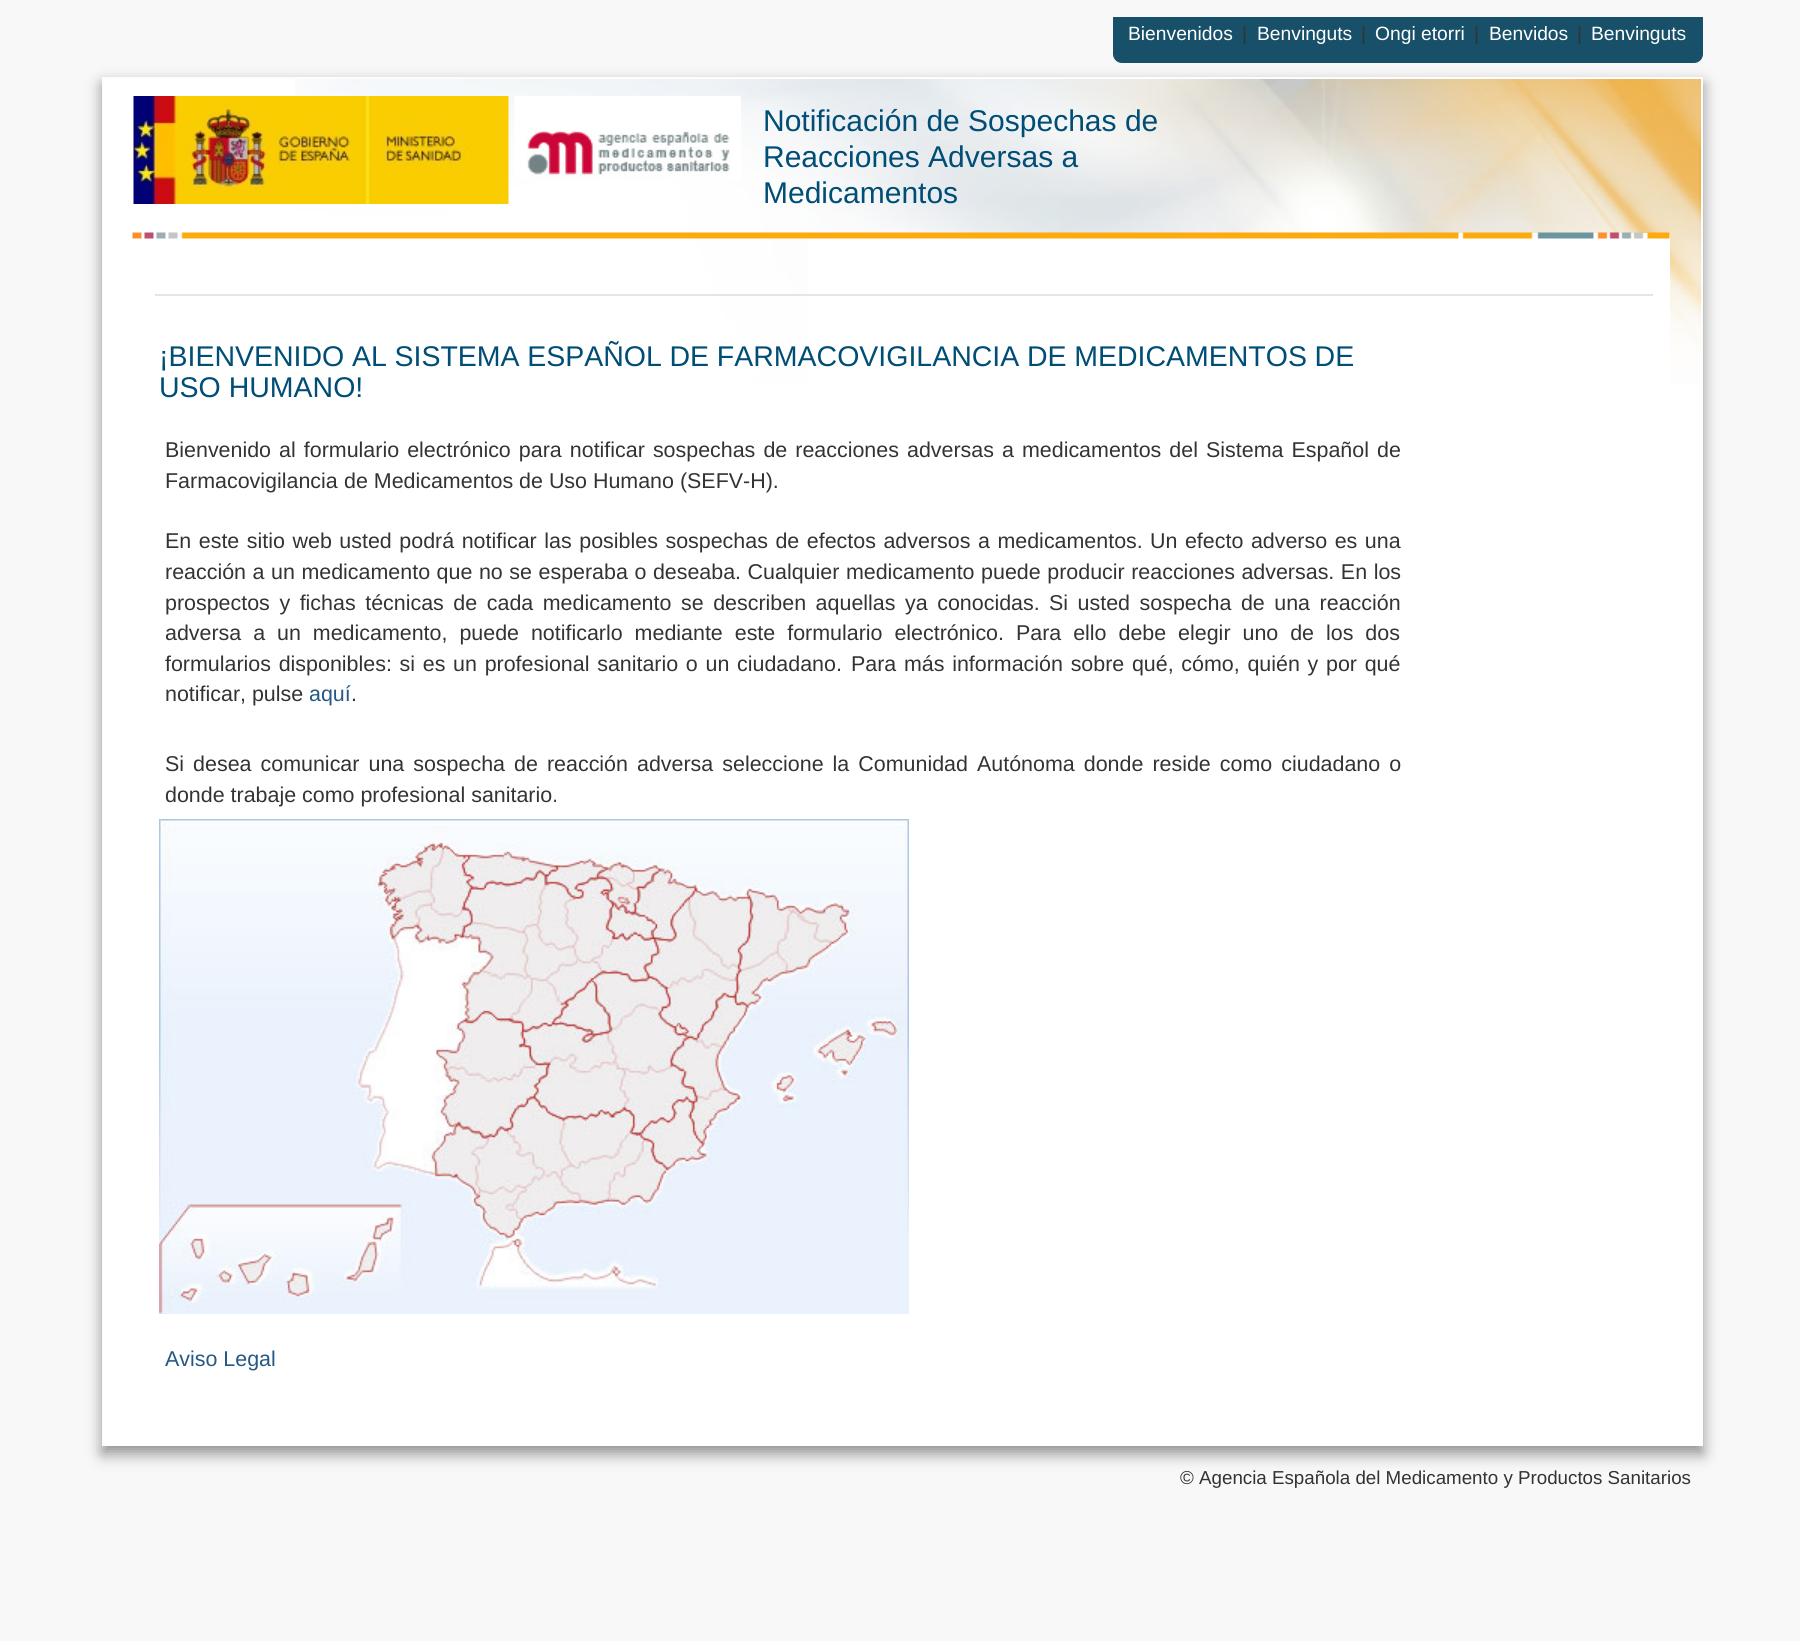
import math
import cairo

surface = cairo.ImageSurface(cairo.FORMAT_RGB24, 1800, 1641)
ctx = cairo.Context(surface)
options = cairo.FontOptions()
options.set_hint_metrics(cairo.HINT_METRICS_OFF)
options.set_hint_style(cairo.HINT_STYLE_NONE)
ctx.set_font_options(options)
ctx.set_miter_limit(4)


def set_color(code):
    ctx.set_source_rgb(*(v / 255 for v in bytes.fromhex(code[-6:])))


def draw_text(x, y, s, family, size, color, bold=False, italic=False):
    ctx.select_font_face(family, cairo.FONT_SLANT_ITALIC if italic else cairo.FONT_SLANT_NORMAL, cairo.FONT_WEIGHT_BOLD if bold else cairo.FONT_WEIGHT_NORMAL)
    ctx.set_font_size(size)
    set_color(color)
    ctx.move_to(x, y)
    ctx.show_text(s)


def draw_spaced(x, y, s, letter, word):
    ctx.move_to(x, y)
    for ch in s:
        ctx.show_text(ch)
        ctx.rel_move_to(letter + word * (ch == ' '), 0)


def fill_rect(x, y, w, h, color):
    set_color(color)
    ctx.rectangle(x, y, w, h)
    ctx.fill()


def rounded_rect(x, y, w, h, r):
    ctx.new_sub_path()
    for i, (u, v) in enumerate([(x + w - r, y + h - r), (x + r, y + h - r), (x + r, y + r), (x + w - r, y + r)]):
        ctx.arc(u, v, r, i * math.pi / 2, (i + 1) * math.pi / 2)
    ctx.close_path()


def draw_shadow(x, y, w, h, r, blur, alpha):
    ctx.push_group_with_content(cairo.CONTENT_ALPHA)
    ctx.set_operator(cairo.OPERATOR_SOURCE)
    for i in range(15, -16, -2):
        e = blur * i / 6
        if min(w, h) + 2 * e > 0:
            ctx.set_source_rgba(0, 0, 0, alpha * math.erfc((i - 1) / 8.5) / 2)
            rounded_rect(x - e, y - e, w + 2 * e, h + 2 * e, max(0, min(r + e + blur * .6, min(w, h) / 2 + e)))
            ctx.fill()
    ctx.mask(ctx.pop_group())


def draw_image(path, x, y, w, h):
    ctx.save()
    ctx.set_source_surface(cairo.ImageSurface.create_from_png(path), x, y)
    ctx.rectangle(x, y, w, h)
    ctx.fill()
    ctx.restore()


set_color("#f8f8f8")
ctx.paint()
set_color("#919191")
draw_shadow(102, 84, 1601, 1370, 0, 7.5, 1)
set_color("#175068")
ctx.new_path()
ctx.move_to(1113, 17)
ctx.line_to(1703, 17)
ctx.line_to(1703, 54)
ctx.curve_to(1703, 59, 1699, 63, 1694, 63)
ctx.line_to(1122, 63)
ctx.curve_to(1117, 63, 1113, 59, 1113, 54)
ctx.close_path()
ctx.fill()
draw_text(1128, 40, "Bienvenidos", "Liberation Sans", 19.25, "#ffffff")
draw_text(1242, 40, "|", "Liberation Sans", 19.25, "#333333")
draw_text(1257, 40, "Benvinguts", "Liberation Sans", 19.25, "#ffffff")
draw_text(1361, 40, "|", "Liberation Sans", 19.25, "#333333")
draw_text(1375, 40, "Ongi etorri", "Liberation Sans", 19.25, "#ffffff")
draw_text(1474, 40, "|", "Liberation Sans", 19.25, "#333333")
draw_text(1489, 40, "Benvidos", "Liberation Sans", 19.25, "#ffffff")
draw_text(1577, 40, "|", "Liberation Sans", 19.25, "#333333")
draw_text(1591, 40, "Benvinguts", "Liberation Sans", 19.25, "#ffffff")
fill_rect(104, 79, 1597, 1365, "#ffffff")
draw_image("assets/img1.png", 295, 79, 1406, 306)
ctx.rectangle(103, 78, 1599, 1367)
set_color("#fdfdfd")
ctx.stroke()
draw_image("assets/img2.png", 133, 96, 376, 108)
draw_image("assets/img3.png", 514, 96, 227, 84)
draw_text(763, 131, "Notificación de Sospechas de", "Liberation Sans", 30, "#004d75")
draw_text(763, 167, "Reacciones Adversas a", "Liberation Sans", 30, "#004d75")
draw_text(763, 203, "Medicamentos", "Liberation Sans", 30, "#004d75")
fill_rect(808, 233, 862, 152, "#ffffff")
draw_image("assets/img4.png", 132, 232, 1538, 7)
fill_rect(155, 294, 1498, 2, "#e5e5e5")
ctx.set_font_size(28.5)
set_color("#004d75")
draw_spaced(159, 366, "¡BIENVENIDO AL SISTEMA ESPAÑOL DE FARMACOVIGILANCIA DE MEDICAMENTOS DE", 0, -0.25)
draw_text(159, 397, "USO HUMANO!", "Liberation Sans", 28.5, "#004d75")
ctx.set_font_size(21.43)
set_color("#333333")
draw_spaced(165, 457, "Bienvenido al formulario electrónico para notificar sospechas de reacciones adversas a medicamentos del Sistema Español de", 0, 2.1)
draw_text(165, 488, "Farmacovigilancia", "Liberation Sans", 21.43, "#333333")
draw_text(344, 488, "de Medicamentos de Uso Humano (SEFV-H).", "Liberation Sans", 21.43, "#333333")
draw_spaced(165, 548, "En este sitio web usted podrá notificar las posibles sospechas de efectos adversos a medicamentos.", 0, 1.6)
draw_spaced(1150, 548, "Un efecto adverso es una", 0, 1.6)
draw_spaced(165, 579, "reacción a un medicamento que no se esperaba o deseaba. Cualquier medicamento puede producir reacciones adversas. En los", 0, 0.6)
draw_spaced(165, 610, "prospectos y fichas técnicas de cada medicamento se describen aquellas ya conocidas.", 0, 3.6)
draw_spaced(1049, 610, "Si usted sospecha de una reacción", 0, 3.6)
draw_spaced(165, 640, "adversa a un medicamento, puede notificarlo mediante este formulario electrónico. Para ello debe elegir uno de los dos", 0, 6)
draw_spaced(165, 671, "formularios disponibles: si es un profesional sanitario o un ciudadano.", 0, 1.75)
draw_spaced(851, 671, "Para más información sobre qué, cómo, quién y por qué", 0, 1.75)
draw_text(165, 701, "notificar, pulse", "Liberation Sans", 21.43, "#333333")
draw_text(309, 701, "aquí", "Liberation Sans", 21.43, "#255885")
draw_text(351, 701, ".", "Liberation Sans", 21.43, "#333333")
draw_spaced(165, 771, "Si desea comunicar una sospecha de reacción adversa seleccione la Comunidad Autónoma donde reside como ciudadano o", 0, 3.1)
draw_text(165, 802, "donde trabaje como profesional sanitario.", "Liberation Sans", 21.43, "#333333")
draw_image("assets/img5.png", 159, 819, 750, 495)
draw_text(165, 1366, "Aviso Legal", "Liberation Sans", 21.43, "#255885")
draw_text(1180, 1484, "© Agencia Española del Medicamento y Productos Sanitarios", "Liberation Sans", 18.75, "#333333")
surface.write_to_png("output.png")
